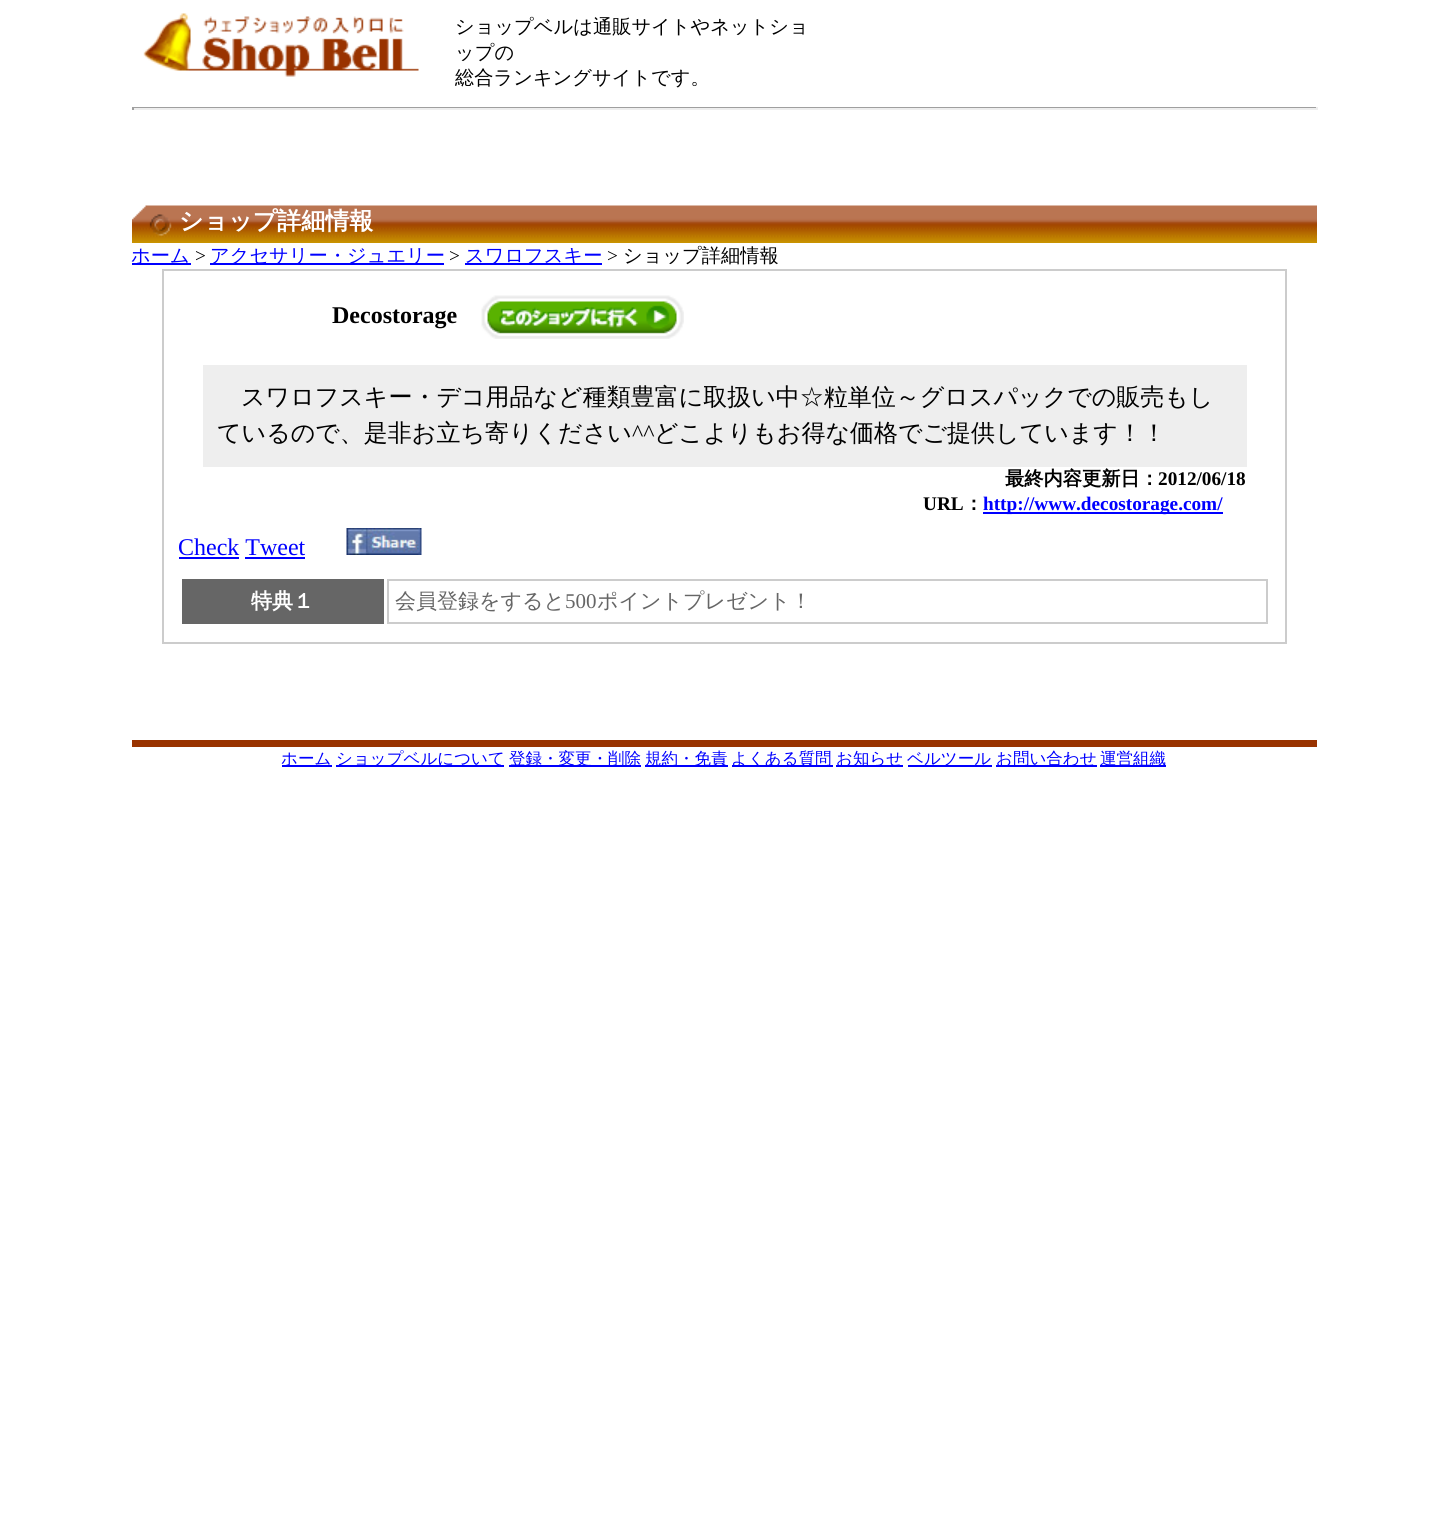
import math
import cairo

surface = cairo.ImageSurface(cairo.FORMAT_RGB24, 1447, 1528)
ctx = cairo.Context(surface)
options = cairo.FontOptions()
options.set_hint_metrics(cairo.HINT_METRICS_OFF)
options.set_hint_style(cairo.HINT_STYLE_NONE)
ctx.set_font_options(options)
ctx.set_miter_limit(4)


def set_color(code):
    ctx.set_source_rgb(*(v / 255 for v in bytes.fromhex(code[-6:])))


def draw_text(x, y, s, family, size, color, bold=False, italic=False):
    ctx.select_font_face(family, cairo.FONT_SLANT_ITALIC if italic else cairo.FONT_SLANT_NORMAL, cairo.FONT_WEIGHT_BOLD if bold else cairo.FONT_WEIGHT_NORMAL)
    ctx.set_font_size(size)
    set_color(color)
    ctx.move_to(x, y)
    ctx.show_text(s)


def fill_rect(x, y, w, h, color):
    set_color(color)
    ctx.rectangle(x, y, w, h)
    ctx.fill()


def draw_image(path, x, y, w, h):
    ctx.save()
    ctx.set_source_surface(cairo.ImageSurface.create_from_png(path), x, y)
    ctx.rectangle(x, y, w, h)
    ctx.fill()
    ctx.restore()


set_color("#ffffff")
ctx.paint()
draw_image("assets/img1.png", 143, 13, 276, 64)
draw_text(455, 33, "ショップベルは通販サイトやネットショ", "WenQuanYi Zen Hei Medium", 19.25, "#000000")
draw_text(455, 59, "ップの", "WenQuanYi Zen Hei Medium", 19.25, "#000000")
draw_text(455, 84, "総合ランキングサイトです。", "WenQuanYi Zen Hei Medium", 19.25, "#000000")
fill_rect(132, 107, 1185, 1, "#9f9f9f")
fill_rect(1316, 107, 2, 3, "#eeeeee")
fill_rect(132, 108, 1185, 2, "#eeeeee")
fill_rect(132, 107, 2, 3, "#9f9f9f")
draw_image("assets/img2.png", 132, 205, 1185, 38)
draw_text(179, 229, "ショップ詳細情報", "WenQuanYi Zen Hei", 24, "#ffffff", bold=True)
fill_rect(132, 263, 59, 2, "#0000ff")
draw_text(131, 262, "ホーム", "WenQuanYi Zen Hei Medium", 19.25, "#0000ff")
draw_text(195, 262, ">", "Liberation Serif", 19.25, "#000000")
fill_rect(210, 263, 234, 2, "#0000ff")
draw_text(210, 262, "アクセサリー・ジュエリー", "WenQuanYi Zen Hei Medium", 19.25, "#0000ff")
draw_text(449, 262, ">", "Liberation Serif", 19.25, "#000000")
fill_rect(465, 263, 137, 2, "#0000ff")
draw_text(465, 262, "スワロフスキー", "WenQuanYi Zen Hei Medium", 19.25, "#0000ff")
draw_text(607, 262, ">", "Liberation Serif", 19.25, "#000000")
draw_text(623, 262, "ショップ詳細情報", "WenQuanYi Zen Hei Medium", 19.25, "#000000")
ctx.rectangle(163, 270, 1123, 373)
set_color("#cccccc")
ctx.stroke()
draw_text(332, 323, "Decostorage", "Liberation Serif", 24, "#000000", bold=True)
draw_image("assets/img3.png", 481, 295, 203, 44)
fill_rect(203, 365, 1044, 102, "#eeeeee")
draw_text(241, 405, "スワロフスキー・デコ用品など種類豊富に取扱い中☆粒単位～グロスパックでの販売もし", "WenQuanYi Zen Hei Medium", 24, "#000000")
draw_text(217, 441, "ているので、是非お立ち寄りください", "WenQuanYi Zen Hei Medium", 24, "#000000")
draw_text(632, 441, "^^", "Liberation Serif", 24, "#000000")
draw_text(654, 441, "どこよりもお得な価格でご提供しています！！", "WenQuanYi Zen Hei Medium", 24, "#000000")
draw_text(1005, 485, "最終内容更新日：", "WenQuanYi Zen Hei", 19.25, "#000000", bold=True)
draw_text(1158, 485, "2012/06/18", "Liberation Serif", 19.25, "#000000", bold=True)
draw_text(923, 510, "URL", "Liberation Serif", 19.25, "#000000", bold=True)
draw_text(964, 510, "：", "WenQuanYi Zen Hei", 19.25, "#000000", bold=True)
fill_rect(983, 512, 240, 2, "#0000ff")
draw_text(983, 510, "http://www.decostorage.com/", "Liberation Serif", 19.25, "#0000ff", bold=True)
draw_text(178, 555, "Check Tweet", "Liberation Serif", 24, "#0000ff")
fill_rect(179, 557, 60, 2, "#0000ff")
draw_image("assets/img4.png", 346, 528, 76, 27)
fill_rect(245, 557, 60, 2, "#0000ff")
fill_rect(182, 579, 202, 45, "#666666")
draw_text(251, 608, "特典１", "WenQuanYi Zen Hei", 21, "#ffffff", bold=True)
ctx.rectangle(388, 580, 879, 43)
set_color("#cccccc")
ctx.stroke()
draw_text(395, 608, "会員登録をすると", "WenQuanYi Zen Hei Medium", 21, "#666666")
draw_text(565, 608, "500", "Liberation Serif", 21, "#666666")
draw_text(597, 608, "ポイントプレゼント！", "WenQuanYi Zen Hei Medium", 21, "#666666")
fill_rect(132, 740, 1185, 7, "#993300")
fill_rect(282, 765, 50, 2, "#0000ff")
draw_text(281, 764, "ホーム", "WenQuanYi Zen Hei Medium", 16.5, "#0000ff")
fill_rect(336, 765, 168, 2, "#0000ff")
draw_text(336, 764, "ショップベルについて", "WenQuanYi Zen Hei Medium", 16.5, "#0000ff")
fill_rect(509, 765, 132, 2, "#0000ff")
draw_text(509, 764, "登録・変更・削除", "WenQuanYi Zen Hei Medium", 16.5, "#0000ff")
fill_rect(645, 765, 83, 2, "#0000ff")
draw_text(645, 764, "規約・免責", "WenQuanYi Zen Hei Medium", 16.5, "#0000ff")
fill_rect(732, 765, 101, 2, "#0000ff")
draw_text(731, 764, "よくある質問", "WenQuanYi Zen Hei Medium", 16.5, "#0000ff")
fill_rect(836, 765, 67, 2, "#0000ff")
draw_text(836, 764, "お知らせ", "WenQuanYi Zen Hei Medium", 16.5, "#0000ff")
fill_rect(908, 765, 84, 2, "#0000ff")
draw_text(907, 764, "ベルツール", "WenQuanYi Zen Hei Medium", 16.5, "#0000ff")
fill_rect(996, 765, 101, 2, "#0000ff")
draw_text(996, 764, "お問い合わせ", "WenQuanYi Zen Hei Medium", 16.5, "#0000ff")
fill_rect(1100, 765, 66, 2, "#0000ff")
draw_text(1100, 764, "運営組織", "WenQuanYi Zen Hei Medium", 16.5, "#0000ff")
surface.write_to_png("output.png")
